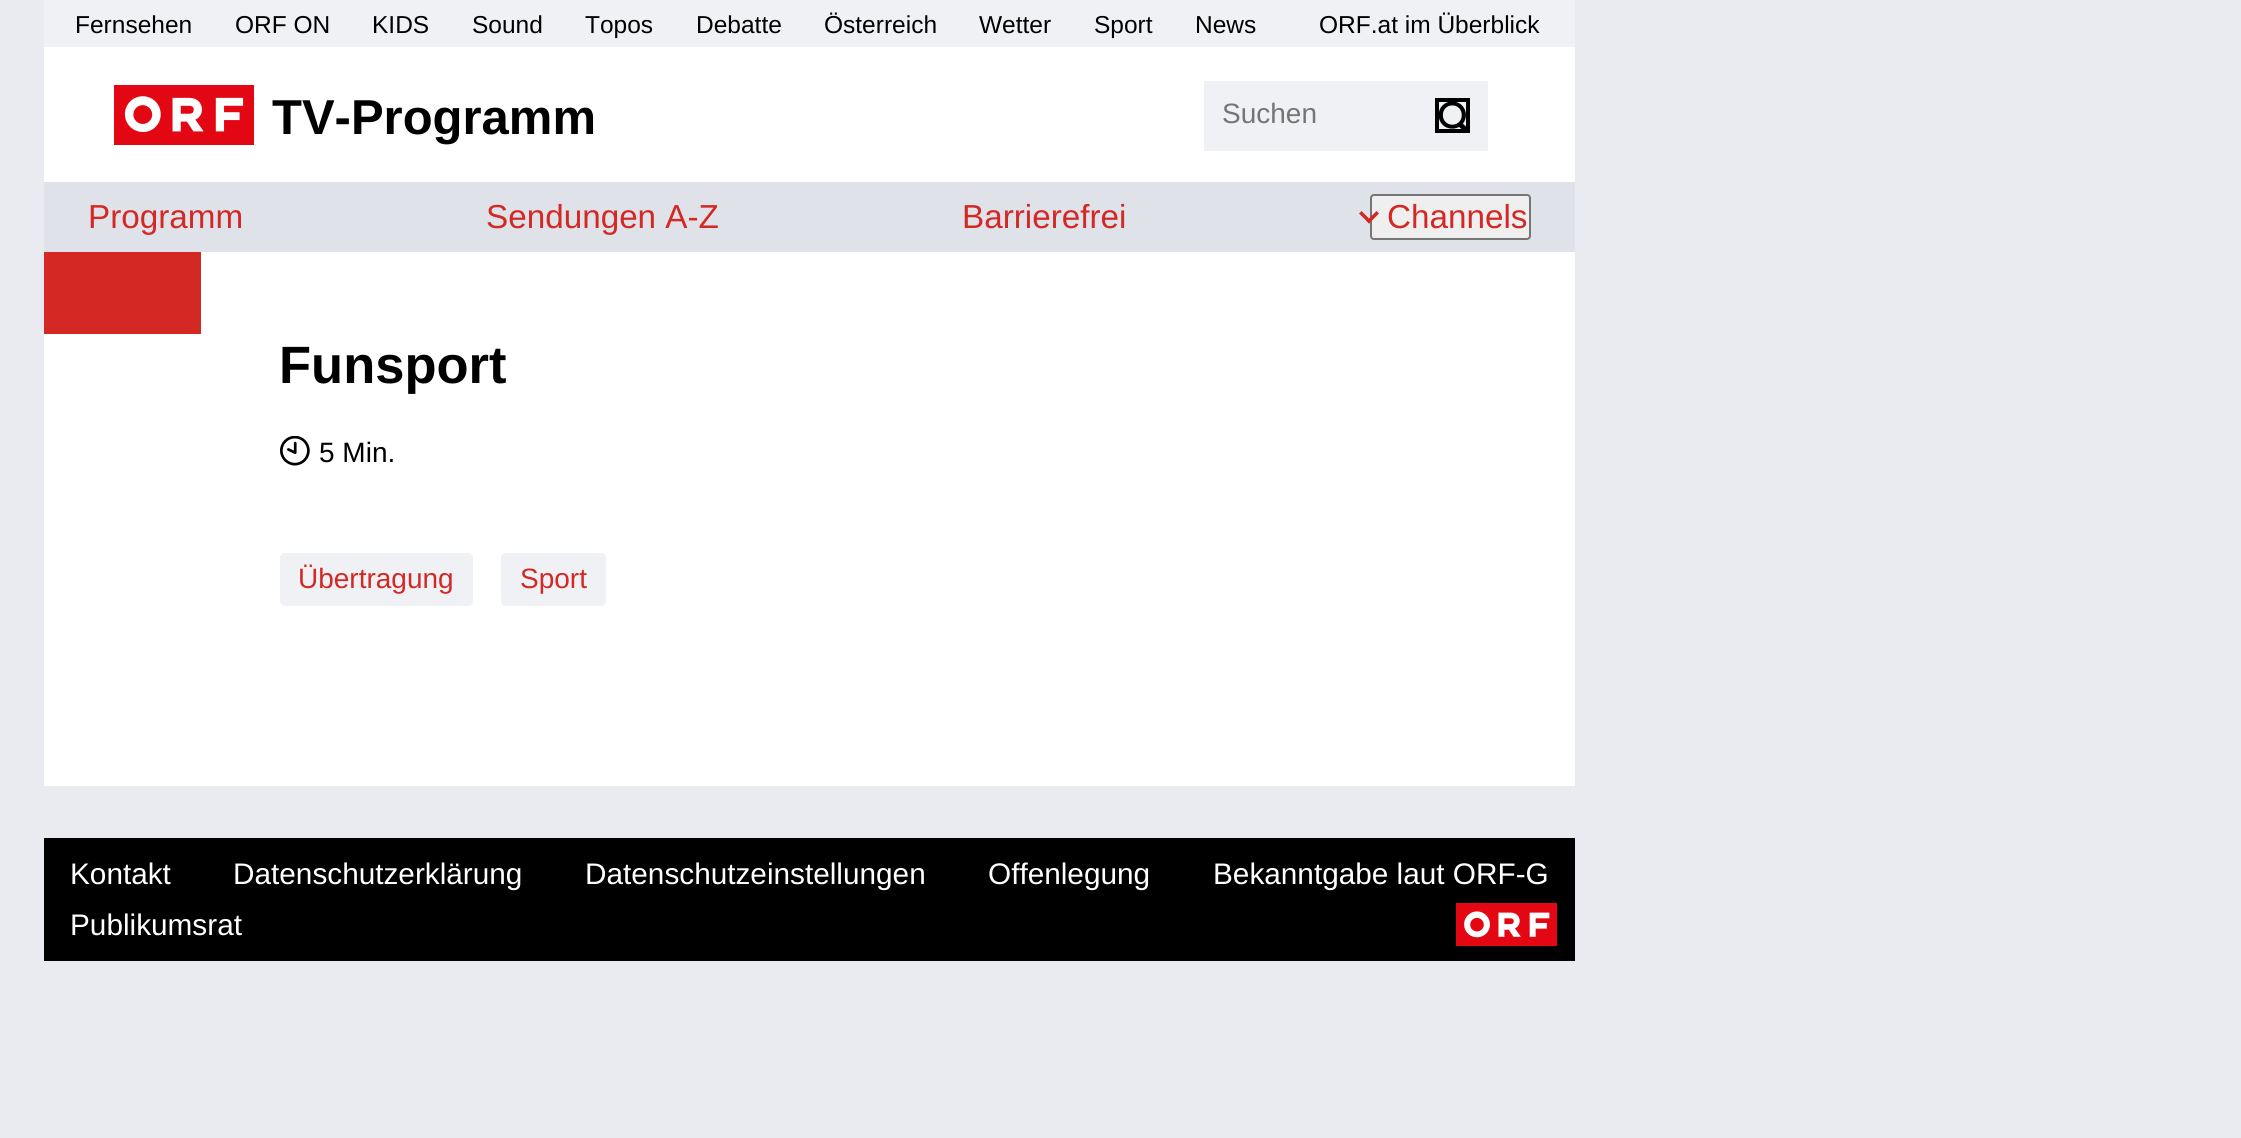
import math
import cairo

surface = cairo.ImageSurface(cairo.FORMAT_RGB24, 2241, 1138)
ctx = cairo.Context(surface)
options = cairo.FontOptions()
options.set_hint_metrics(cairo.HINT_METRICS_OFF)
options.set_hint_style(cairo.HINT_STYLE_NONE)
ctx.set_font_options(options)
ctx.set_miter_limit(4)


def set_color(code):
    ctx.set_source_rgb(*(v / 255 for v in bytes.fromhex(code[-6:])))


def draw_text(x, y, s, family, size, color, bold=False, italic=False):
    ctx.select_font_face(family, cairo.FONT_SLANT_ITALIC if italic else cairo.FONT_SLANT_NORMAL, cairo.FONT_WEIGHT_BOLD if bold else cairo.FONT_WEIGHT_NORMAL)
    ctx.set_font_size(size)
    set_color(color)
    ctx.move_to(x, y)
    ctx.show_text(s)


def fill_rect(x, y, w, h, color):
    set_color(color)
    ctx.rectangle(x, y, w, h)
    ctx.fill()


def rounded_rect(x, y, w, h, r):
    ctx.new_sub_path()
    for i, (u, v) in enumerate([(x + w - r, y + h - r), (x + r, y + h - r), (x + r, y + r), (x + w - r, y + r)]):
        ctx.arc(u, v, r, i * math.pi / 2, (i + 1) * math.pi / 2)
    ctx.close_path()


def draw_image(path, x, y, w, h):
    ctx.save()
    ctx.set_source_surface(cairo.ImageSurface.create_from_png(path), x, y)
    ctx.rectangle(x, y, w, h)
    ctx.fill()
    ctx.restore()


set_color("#e9ebf0")
ctx.paint()
fill_rect(44, 0, 1531, 47, "#f0f1f4")
draw_text(75, 33, "Fernsehen", "Liberation Sans", 24.5, "#000000")
draw_text(235, 33, "ORF ON", "Liberation Sans", 24.5, "#000000")
draw_text(372, 33, "KIDS", "Liberation Sans", 24.5, "#000000")
draw_text(472, 33, "Sound", "Liberation Sans", 24.5, "#000000")
draw_text(585, 33, "Topos", "Liberation Sans", 24.5, "#000000")
draw_text(696, 33, "Debatte", "Liberation Sans", 24.5, "#000000")
draw_text(824, 33, "Österreich", "Liberation Sans", 24.5, "#000000")
draw_text(979, 33, "Wetter", "Liberation Sans", 24.5, "#000000")
draw_text(1094, 33, "Sport", "Liberation Sans", 24.5, "#000000")
draw_text(1195, 33, "News", "Liberation Sans", 24.5, "#000000")
draw_text(1319, 33, "ORF.at im Überblick", "Liberation Sans", 24.5, "#000000")
fill_rect(44, 47, 1531, 135, "#ffffff")
draw_image("assets/img1.png", 114, 85, 140, 60)
draw_text(272, 134, "TV-Programm", "Liberation Sans", 49, "#000000", bold=True)
fill_rect(1204, 81, 284, 70, "#f0f1f4")
draw_text(1222, 123, "Suchen", "Liberation Sans", 28, "#757575")
draw_image("assets/img2.png", 1439, 102, 27, 27)
ctx.rectangle(1437, 100, 31, 31)
set_color("#000000")
ctx.set_line_width(4)
ctx.stroke()
fill_rect(44, 182, 1531, 70, "#dfe2e8")
draw_text(88, 228, "Programm", "Liberation Sans", 33.25, "#d32824")
draw_text(486, 228, "Sendungen A-Z", "Liberation Sans", 33.25, "#d32824")
draw_text(962, 228, "Barrierefrei", "Liberation Sans", 33.25, "#d32824")
set_color("#efefef")
rounded_rect(1371, 195, 159, 44, 3)
ctx.fill_preserve()
set_color("#767676")
ctx.set_line_width(2)
ctx.stroke()
set_color("#d32824")
ctx.new_path()
ctx.move_to(1366.5, 221)
ctx.line_to(1376.5, 211)
ctx.line_to(1379, 213.5)
ctx.line_to(1369, 223.5)
ctx.close_path()
ctx.fill()
ctx.new_path()
ctx.move_to(1359, 213.5)
ctx.line_to(1361.5, 211)
ctx.line_to(1371.5, 221)
ctx.line_to(1369, 223.5)
ctx.close_path()
ctx.fill()
draw_text(1387, 228, "Channels", "Liberation Sans", 33.25, "#d32824")
fill_rect(44, 252, 1531, 534, "#ffffff")
fill_rect(44, 252, 157, 82, "#d32824")
draw_text(279, 383, "Funsport", "Liberation Sans", 52.5, "#000000", bold=True)
draw_image("assets/img3.png", 280, 436, 30, 30)
draw_text(319, 462, "5 Min.", "Liberation Sans", 28, "#000000")
set_color("#f0f1f4")
rounded_rect(280, 553, 193, 53, 5)
ctx.fill()
draw_text(298, 588, "Übertragung", "Liberation Sans", 28, "#d32824")
set_color("#f0f1f4")
rounded_rect(501, 553, 105, 53, 5)
ctx.fill()
draw_text(520, 588, "Sport", "Liberation Sans", 28, "#d32824")
fill_rect(44, 838, 1531, 123, "#000000")
draw_text(70, 884, "Kontakt", "Liberation Sans", 29.75, "#ffffff")
draw_text(233, 884, "Datenschutzerklärung", "Liberation Sans", 29.75, "#ffffff")
draw_text(585, 884, "Datenschutzeinstellungen", "Liberation Sans", 29.75, "#ffffff")
draw_text(988, 884, "Offenlegung", "Liberation Sans", 29.75, "#ffffff")
draw_text(1213, 884, "Bekanntgabe laut ORF-G", "Liberation Sans", 29.75, "#ffffff")
draw_text(70, 935, "Publikumsrat", "Liberation Sans", 29.75, "#ffffff")
draw_image("assets/img4.png", 1456, 903, 101, 43)
surface.write_to_png("output.png")
